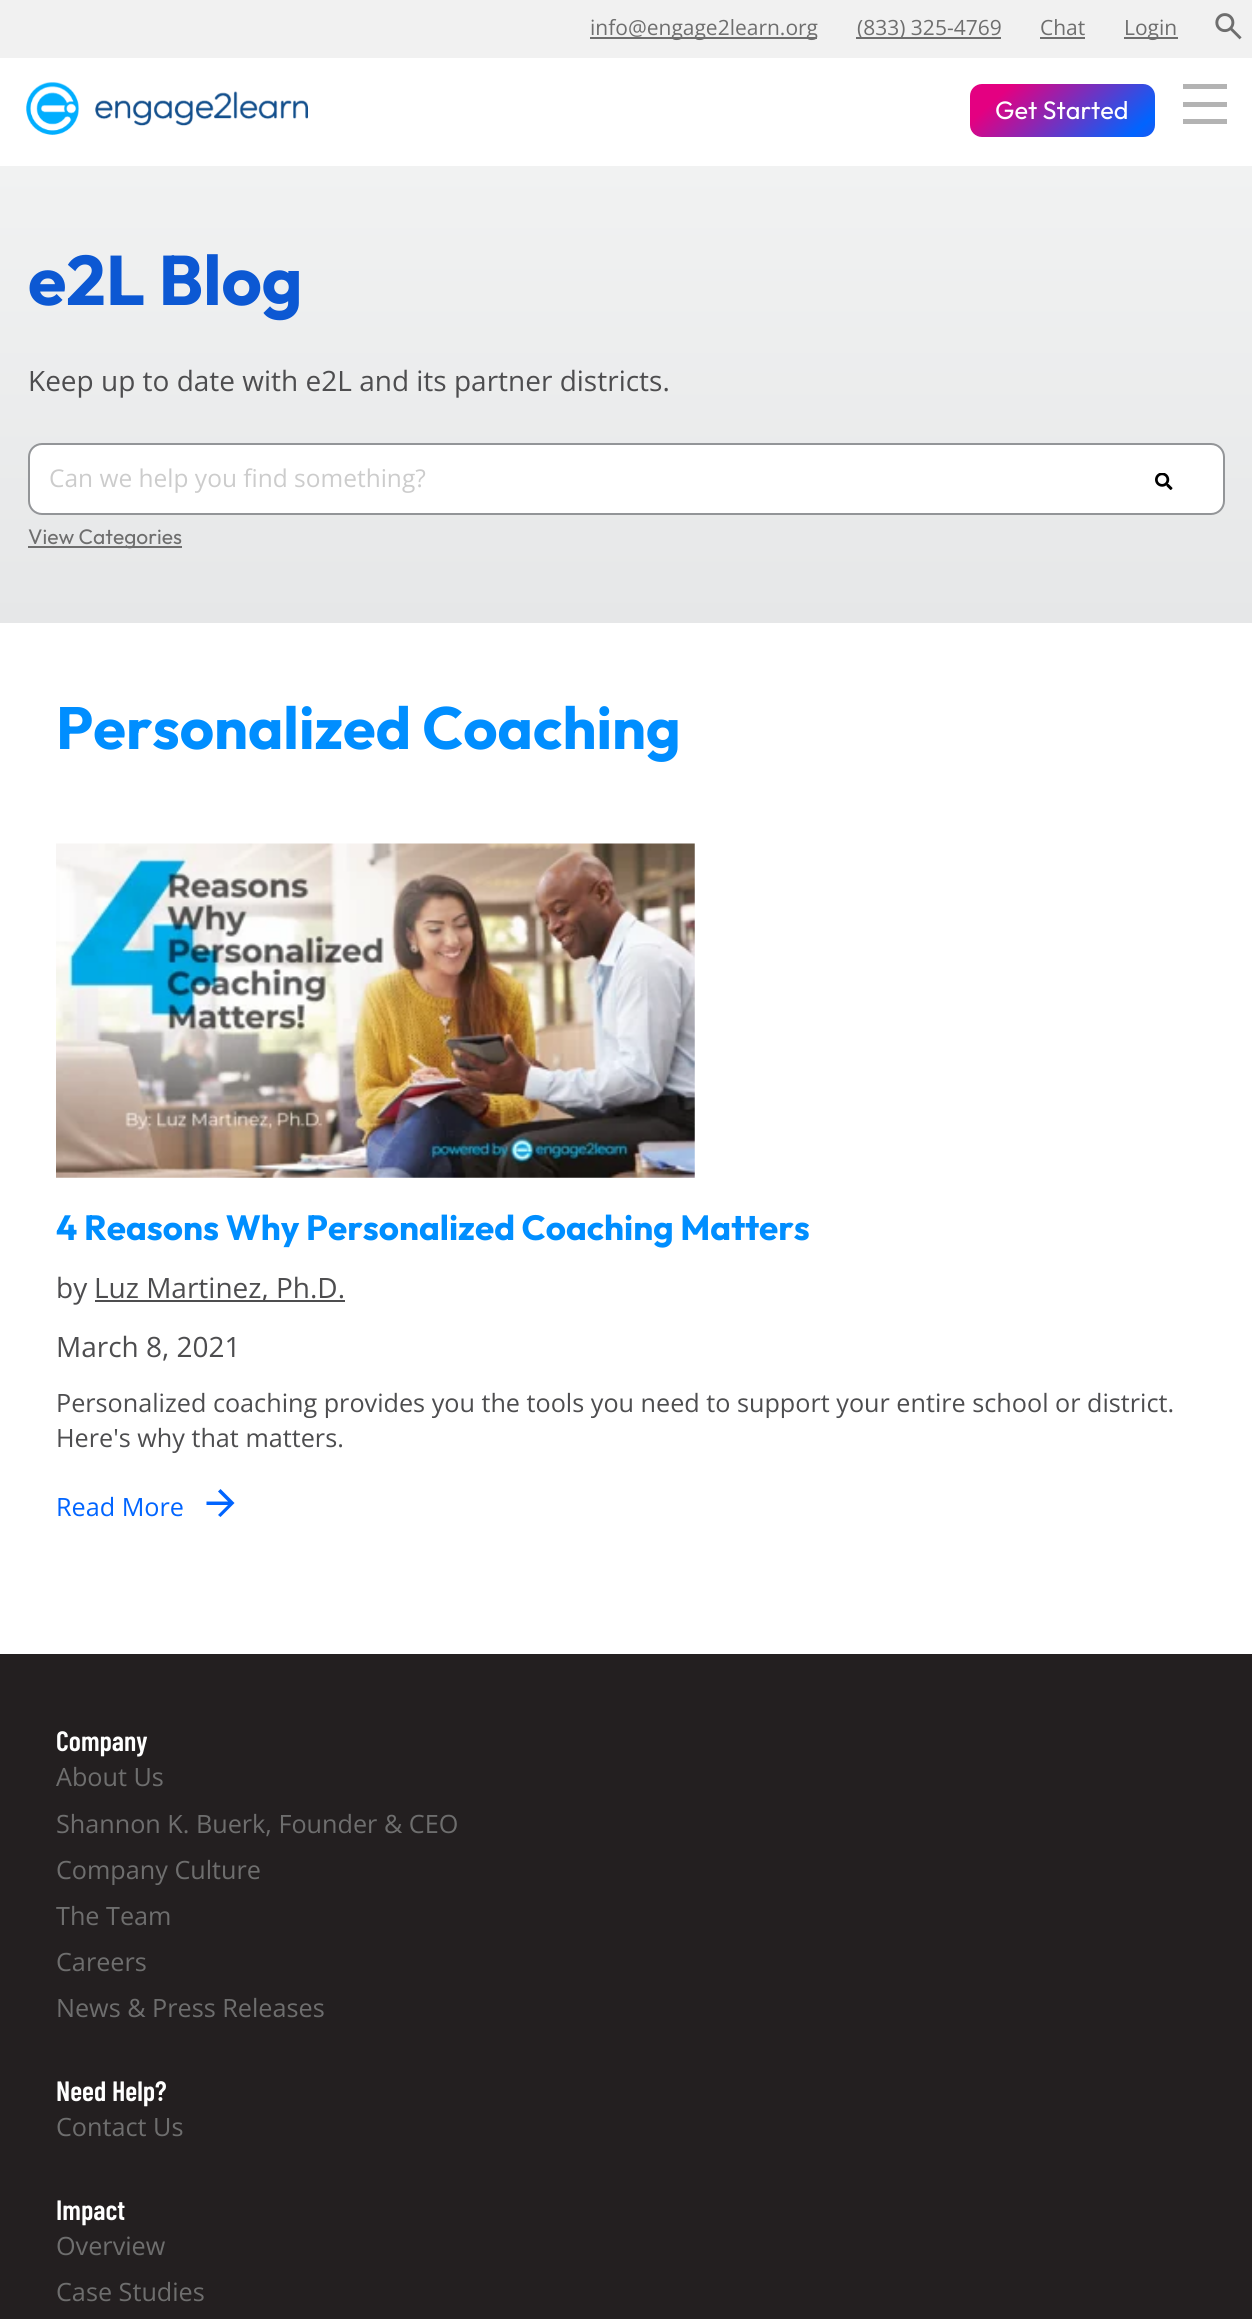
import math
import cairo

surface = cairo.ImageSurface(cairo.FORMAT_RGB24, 1252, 2319)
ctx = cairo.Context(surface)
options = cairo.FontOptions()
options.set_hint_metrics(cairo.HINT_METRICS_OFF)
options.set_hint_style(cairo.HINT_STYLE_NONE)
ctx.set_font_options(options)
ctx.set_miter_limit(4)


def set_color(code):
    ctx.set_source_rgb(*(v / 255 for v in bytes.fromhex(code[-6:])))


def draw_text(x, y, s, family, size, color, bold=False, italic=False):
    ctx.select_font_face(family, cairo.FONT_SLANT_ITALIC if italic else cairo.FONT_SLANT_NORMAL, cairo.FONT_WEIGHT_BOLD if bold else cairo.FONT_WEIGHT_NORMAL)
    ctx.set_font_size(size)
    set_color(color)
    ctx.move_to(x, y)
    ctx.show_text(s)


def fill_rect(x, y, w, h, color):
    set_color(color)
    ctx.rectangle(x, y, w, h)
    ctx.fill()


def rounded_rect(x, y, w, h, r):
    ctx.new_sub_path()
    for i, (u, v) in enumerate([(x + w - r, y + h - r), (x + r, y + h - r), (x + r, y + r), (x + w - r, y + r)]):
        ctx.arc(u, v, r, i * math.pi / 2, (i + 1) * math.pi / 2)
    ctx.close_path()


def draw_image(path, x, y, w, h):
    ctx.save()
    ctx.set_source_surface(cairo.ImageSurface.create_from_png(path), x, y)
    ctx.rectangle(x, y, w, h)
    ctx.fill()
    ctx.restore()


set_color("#ffffff")
ctx.paint()
fill_rect(0, 0, 1252, 58, "#f1f1f1")
fill_rect(590, 37, 227, 2, "#6e6e6e")
draw_text(590, 35, "info@engage2learn.org", "Open Sans", 21, "#6e6e6e")
fill_rect(856, 37, 145, 2, "#6e6e6e")
draw_text(857, 35, "(833) 325-4769", "Open Sans", 21, "#6e6e6e")
draw_text(1040, 35, "Chat", "Open Sans", 21, "#6e6e6e")
fill_rect(1040, 37, 45, 2, "#6e6e6e")
fill_rect(1124, 37, 54, 2, "#6e6e6e")
draw_text(1124, 35, "Login", "Open Sans", 21, "#6e6e6e")
draw_image("assets/img1.png", 1215, 13, 27, 27)
draw_image("assets/img2.png", 26, 82, 282, 53)
gradient = cairo.LinearGradient(1059, 3.5, 1251, 217)
gradient.add_color_stop_rgba(0.1, 0.894, 0, 0.506, 1)
gradient.add_color_stop_rgba(0.51, 0, 0.392, 1, 1)
gradient.add_color_stop_rgba(1, 0.894, 0, 0.506, 1)
ctx.set_source(gradient)
rounded_rect(970, 84, 185, 53, 12)
ctx.fill()
draw_text(995, 119, "Get Started", "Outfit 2 Thin", 25.2, "#ffffff")
fill_rect(1183, 102, 44, 5, "#b3b3b3")
fill_rect(1183, 84, 44, 5, "#b3b3b3")
fill_rect(1183, 119, 44, 5, "#b3b3b3")
gradient = cairo.LinearGradient(627, 166, 627, 623)
gradient.add_color_stop_rgba(0, 0.945, 0.949, 0.949, 1)
gradient.add_color_stop_rgba(1, 0.902, 0.906, 0.91, 1)
ctx.set_source(gradient)
ctx.rectangle(0, 166, 1252, 457)
ctx.fill()
draw_text(28, 305, "e2L Blog", "Outfit Thin", 70, "#0c58d3")
draw_text(28, 391, "Keep up to date with e2L and its partner districts.", "Open Sans", 28, "#4d4d4f")
set_color("#ffffff")
rounded_rect(29, 444, 1195, 70, 13)
ctx.fill_preserve()
set_color("#939598")
ctx.stroke()
draw_text(49, 487, "Can we help you find something?", "Open Sans", 24.5, "#cccccc")
draw_image("assets/img3.png", 1155, 473, 18, 17)
fill_rect(28, 546, 154, 2, "#6e6e6e")
draw_text(28, 544, "View Categories", "Outfit 2 Thin", 21, "#6e6e6e")
draw_text(56, 749, "Personalized Coaching", "Outfit Thin", 59.5, "#008eff")
draw_image("assets/img4.png", 56, 843, 639, 335)
draw_text(56, 1240, "4 Reasons Why Personalized Coaching Matters", "Outfit Thin", 35, "#008eff")
draw_text(56, 1298, "by", "Open Sans", 28, "#4d4d4f")
fill_rect(95, 1300, 250, 2, "#4d4d4f")
draw_text(94, 1298, "Luz Martinez, Ph.D.", "Open Sans", 28, "#4d4d4f")
draw_text(56, 1357, "March 8, 2021", "Open Sans", 28, "#4d4d4f")
draw_text(56, 1412, "Personalized coaching provides you the tools you need to support your entire school or district.", "Open Sans", 25.2, "#4d4d4f")
draw_text(56, 1447, "Here's why that matters.", "Open Sans", 25.2, "#4d4d4f")
draw_text(56, 1516, "Read More", "Open Sans", 25.2, "#0064ff")
ctx.new_path()
ctx.move_to(228, 1505)
ctx.line_to(206.5, 1505)
ctx.line_to(206.5, 1501.5)
ctx.line_to(228, 1501.5)
ctx.line_to(218, 1491.5)
ctx.line_to(220.5, 1489)
ctx.line_to(234.5, 1503)
ctx.line_to(220.5, 1517)
ctx.line_to(218, 1515)
ctx.close_path()
ctx.fill()
fill_rect(0, 1654, 1252, 665, "#231f20")
draw_text(56, 1751, "Company", "Barlow Condensed SemiBold", 28, "#ffffff")
draw_text(56, 1786, "About Us", "Open Sans", 25.2, "#6e6e6e")
draw_text(56, 1833, "Shannon K. Buerk, Founder & CEO", "Open Sans", 25.2, "#6e6e6e")
draw_text(56, 1879, "Company Culture", "Open Sans", 25.2, "#6e6e6e")
draw_text(56, 1925, "The Team", "Open Sans", 25.2, "#6e6e6e")
draw_text(56, 1971, "Careers", "Open Sans", 25.2, "#6e6e6e")
draw_text(56, 2017, "News & Press Releases", "Open Sans", 25.2, "#6e6e6e")
draw_text(56, 2101, "Need Help?", "Barlow Condensed SemiBold", 28, "#ffffff")
draw_text(56, 2136, "Contact Us", "Open Sans", 25.2, "#6e6e6e")
draw_text(56, 2220, "Impact", "Barlow Condensed SemiBold", 28, "#ffffff")
draw_text(56, 2255, "Overview", "Open Sans", 25.2, "#6e6e6e")
draw_text(56, 2301, "Case Studies", "Open Sans", 25.2, "#6e6e6e")
surface.write_to_png("output.png")
